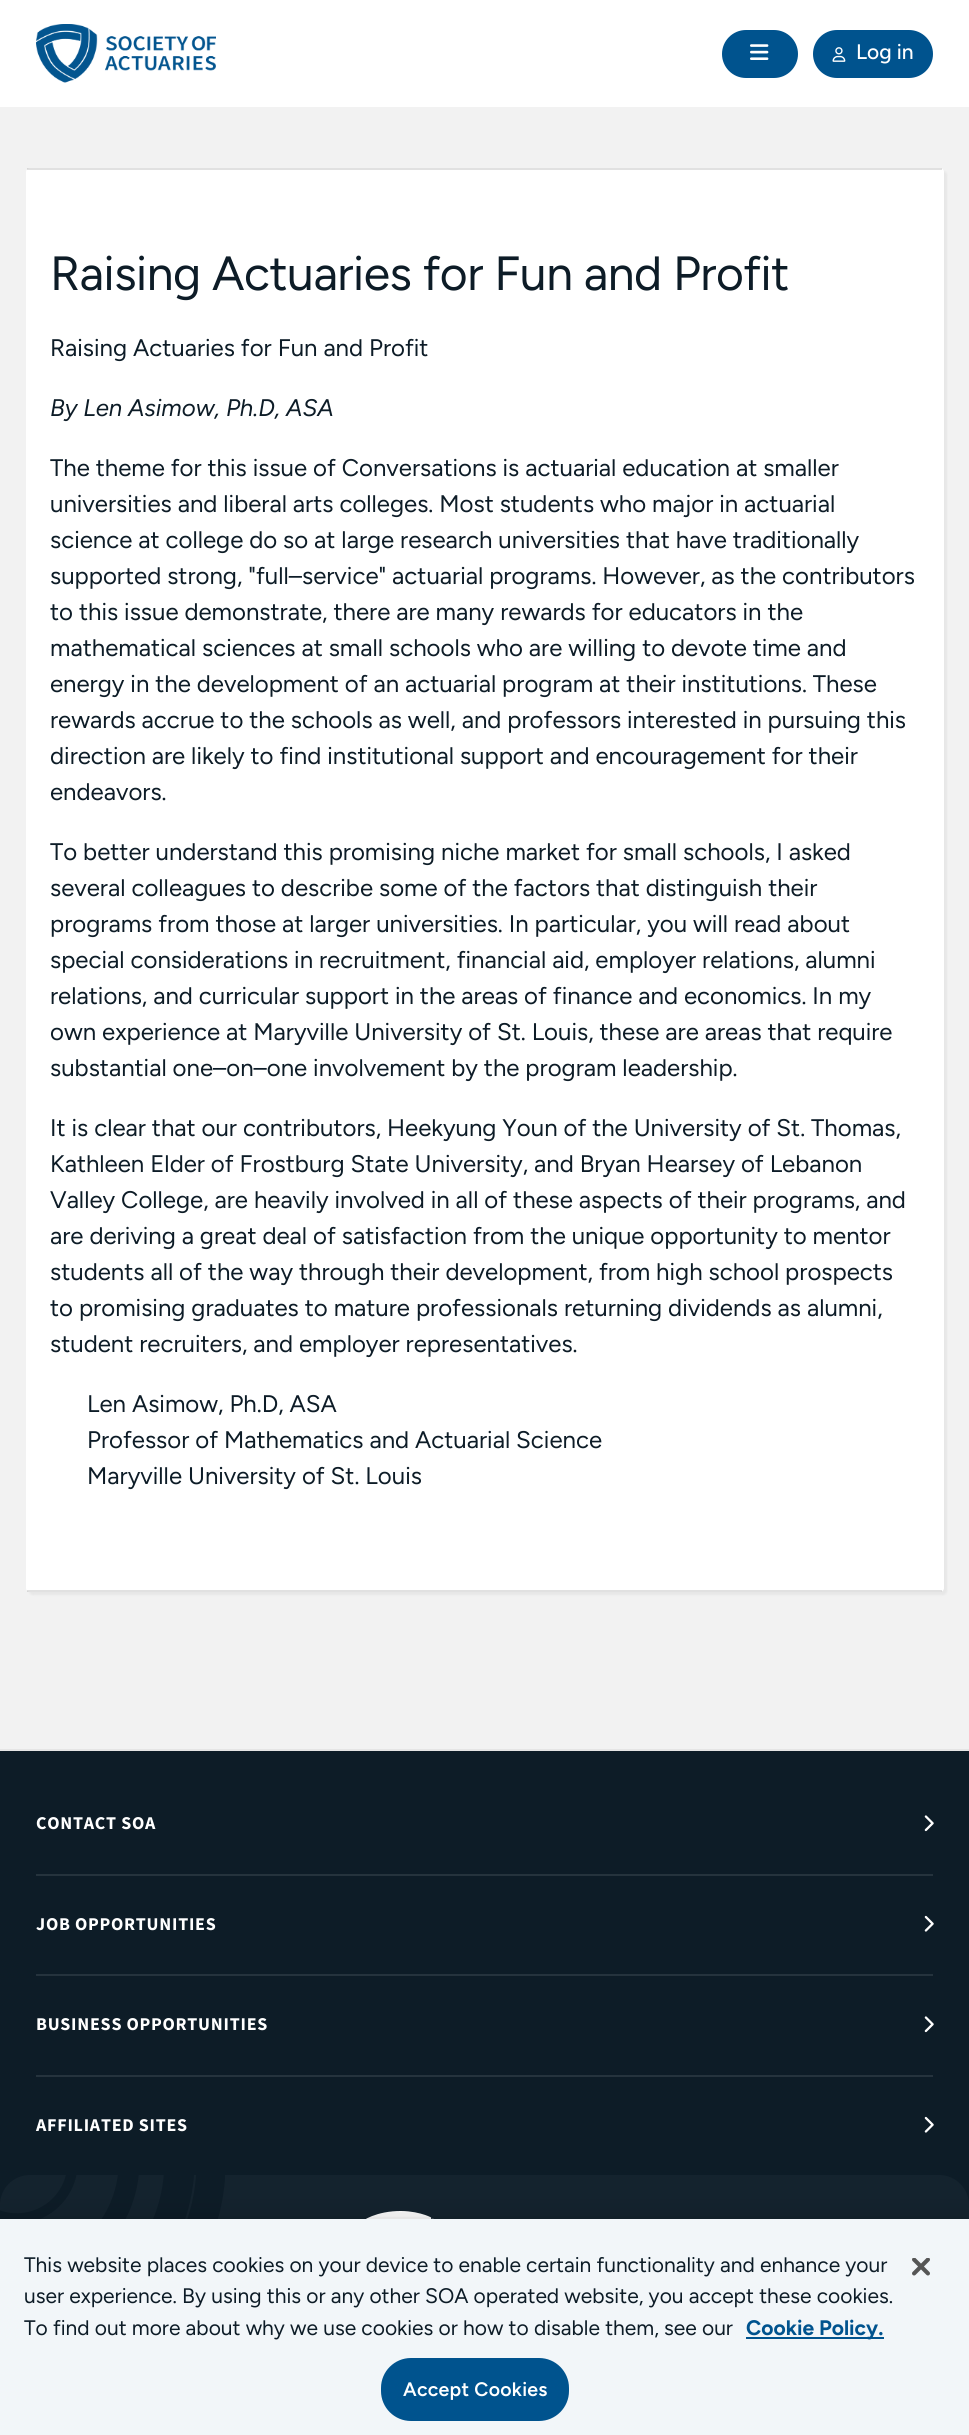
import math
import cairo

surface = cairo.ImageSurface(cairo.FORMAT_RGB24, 969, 2435)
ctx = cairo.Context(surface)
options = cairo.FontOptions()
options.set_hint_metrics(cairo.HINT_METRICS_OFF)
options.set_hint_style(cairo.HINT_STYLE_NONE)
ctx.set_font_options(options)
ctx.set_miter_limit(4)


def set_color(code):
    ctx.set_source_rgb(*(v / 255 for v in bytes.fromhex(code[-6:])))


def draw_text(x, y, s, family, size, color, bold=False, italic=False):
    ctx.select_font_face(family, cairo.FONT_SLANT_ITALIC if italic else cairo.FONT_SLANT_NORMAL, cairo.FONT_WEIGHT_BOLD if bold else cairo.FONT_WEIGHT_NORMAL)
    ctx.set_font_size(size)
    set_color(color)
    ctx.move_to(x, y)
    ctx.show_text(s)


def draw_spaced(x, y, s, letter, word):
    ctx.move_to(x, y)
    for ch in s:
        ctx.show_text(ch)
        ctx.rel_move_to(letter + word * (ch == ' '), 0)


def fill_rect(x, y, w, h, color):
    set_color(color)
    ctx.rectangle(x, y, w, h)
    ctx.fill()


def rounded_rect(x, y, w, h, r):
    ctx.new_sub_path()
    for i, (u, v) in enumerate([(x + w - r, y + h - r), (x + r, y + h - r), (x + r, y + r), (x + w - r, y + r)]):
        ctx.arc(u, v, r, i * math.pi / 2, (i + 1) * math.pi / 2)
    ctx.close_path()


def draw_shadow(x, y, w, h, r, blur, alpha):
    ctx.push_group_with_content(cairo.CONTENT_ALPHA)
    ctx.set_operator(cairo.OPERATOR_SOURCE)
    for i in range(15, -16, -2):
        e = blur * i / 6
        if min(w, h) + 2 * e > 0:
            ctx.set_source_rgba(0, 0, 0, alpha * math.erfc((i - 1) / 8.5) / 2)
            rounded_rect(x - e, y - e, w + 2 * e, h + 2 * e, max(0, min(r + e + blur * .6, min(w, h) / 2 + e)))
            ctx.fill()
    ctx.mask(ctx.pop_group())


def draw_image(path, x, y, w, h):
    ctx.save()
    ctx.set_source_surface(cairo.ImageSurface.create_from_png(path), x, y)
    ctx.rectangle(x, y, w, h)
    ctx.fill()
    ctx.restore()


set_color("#ffffff")
ctx.paint()
draw_image("assets/img1.png", 36, 24, 180, 59)
set_color("#00538e")
rounded_rect(723, 31, 74, 46, 23)
ctx.fill_preserve()
ctx.stroke()
draw_image("assets/img2.png", 750, 44, 19, 16)
rounded_rect(814, 31, 118, 46, 23)
ctx.fill_preserve()
ctx.stroke()
draw_image("assets/img3.png", 832, 47, 14, 15)
draw_text(856, 59, "Log in", "Figtree Medium", 21, "#ffffff")
fill_rect(0, 107, 969, 1642, "#f2f2f2")
fill_rect(0, 1749, 969, 2, "#e5e5e5")
set_color("#000000")
draw_shadow(29, 171, 918, 1424, 4, 1, 0.05)
set_color("#ffffff")
rounded_rect(26, 168, 918, 1424, 4)
ctx.fill()
ctx.set_source_rgba(0, 0, 0, 0.12)
ctx.rectangle(27, 168, 915, 2)
ctx.fill()
ctx.rectangle(27, 1590, 915, 2)
ctx.fill()
ctx.select_font_face("Figtree")
ctx.set_font_size(48)
set_color("#0d1c27")
draw_spaced(50, 290, "Raising Actuaries for Fun and Profit", -0.5, 0)
draw_text(50, 356, "Raising Actuaries for Fun and Profit", "Figtree", 24, "#0d1c27")
draw_text(50, 416, "By Len Asimow, Ph.D, ASA", "Figtree", 24, "#0d1c27", italic=True)
draw_text(50, 476, "The theme for this issue of Conversations is actuarial education at smaller", "Figtree", 24, "#0d1c27")
draw_text(50, 512, "universities and liberal arts colleges. Most students who major in actuarial", "Figtree", 24, "#0d1c27")
draw_text(50, 548, "science at college do so at large research universities that have traditionally", "Figtree", 24, "#0d1c27")
draw_text(50, 584, "supported strong, \"full–service\" actuarial programs. However, as the contributors", "Figtree", 24, "#0d1c27")
draw_text(50, 620, "to this issue demonstrate, there are many rewards for educators in the", "Figtree", 24, "#0d1c27")
draw_text(50, 656, "mathematical sciences at small schools who are willing to devote time and", "Figtree", 24, "#0d1c27")
draw_text(50, 692, "energy in the development of an actuarial program at their institutions. These", "Figtree", 24, "#0d1c27")
draw_text(50, 728, "rewards accrue to the schools as well, and professors interested in pursuing this", "Figtree", 24, "#0d1c27")
draw_text(50, 764, "direction are likely to find institutional support and encouragement for their", "Figtree", 24, "#0d1c27")
draw_text(50, 800, "endeavors.", "Figtree", 24, "#0d1c27")
draw_text(50, 860, "To better understand this promising niche market for small schools, I asked", "Figtree", 24, "#0d1c27")
draw_text(50, 896, "several colleagues to describe some of the factors that distinguish their", "Figtree", 24, "#0d1c27")
draw_text(50, 932, "programs from those at larger universities. In particular, you will read about", "Figtree", 24, "#0d1c27")
draw_text(50, 968, "special considerations in recruitment, financial aid, employer relations, alumni", "Figtree", 24, "#0d1c27")
draw_text(50, 1004, "relations, and curricular support in the areas of finance and economics. In my", "Figtree", 24, "#0d1c27")
draw_text(50, 1040, "own experience at Maryville University of St. Louis, these are areas that require", "Figtree", 24, "#0d1c27")
draw_text(50, 1076, "substantial one–on–one involvement by the program leadership.", "Figtree", 24, "#0d1c27")
draw_text(50, 1136, "It is clear that our contributors, Heekyung Youn of the University of St. Thomas,", "Figtree", 24, "#0d1c27")
draw_text(50, 1172, "Kathleen Elder of Frostburg State University, and Bryan Hearsey of Lebanon", "Figtree", 24, "#0d1c27")
draw_text(50, 1208, "Valley College, are heavily involved in all of these aspects of their programs, and", "Figtree", 24, "#0d1c27")
draw_text(50, 1244, "are deriving a great deal of satisfaction from the unique opportunity to mentor", "Figtree", 24, "#0d1c27")
draw_text(50, 1280, "students all of the way through their development, from high school prospects", "Figtree", 24, "#0d1c27")
draw_text(50, 1316, "to promising graduates to mature professionals returning dividends as alumni,", "Figtree", 24, "#0d1c27")
draw_text(50, 1352, "student recruiters, and employer representatives.", "Figtree", 24, "#0d1c27")
draw_text(87, 1412, "Len Asimow, Ph.D, ASA", "Figtree", 24, "#0d1c27")
draw_text(87, 1448, "Professor of Mathematics and Actuarial Science", "Figtree", 24, "#0d1c27")
draw_text(87, 1484, "Maryville University of St. Louis", "Figtree", 24, "#0d1c27")
fill_rect(0, 1751, 969, 454, "#0d1c27")
ctx.select_font_face("Source Sans 3", cairo.FONT_SLANT_NORMAL, cairo.FONT_WEIGHT_BOLD)
ctx.set_font_size(18)
set_color("#ffffff")
draw_spaced(36, 1829, "CONTACT SOA", 0.75, 0)
draw_image("assets/img4.png", 924, 1815, 10, 17)
fill_rect(36, 1874, 897, 2, "#25333d")
set_color("#ffffff")
draw_spaced(36, 1930, "JOB OPPORTUNITIES", 0.75, 0)
draw_image("assets/img5.png", 924, 1915, 10, 17)
fill_rect(36, 1974, 897, 2, "#25333d")
set_color("#ffffff")
draw_spaced(36, 2030, "BUSINESS OPPORTUNITIES", 0.75, 0)
draw_image("assets/img4.png", 924, 2016, 10, 17)
fill_rect(36, 2075, 897, 2, "#25333d")
set_color("#ffffff")
draw_spaced(36, 2131, "AFFILIATED SITES", 0.75, 0)
draw_image("assets/img5.png", 924, 2116, 10, 17)
set_color("#14232e")
rounded_rect(0, 2175, 969, 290, 30)
ctx.fill()
draw_image("assets/img6.png", 0, 2175, 225, 44)
draw_image("assets/img7.png", 366, 2211, 68, 8)
set_color("#000000")
draw_shadow(0, 2219, 969, 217, 0, 13.5, 0.2)
fill_rect(0, 2219, 969, 216, "#f2f6f9")
draw_text(24, 2272, "This website places cookies on your device to enable certain functionality and enhance your", "Figtree", 21, "#0d1c27")
draw_text(24, 2303, "user experience. By using this or any other SOA operated website, you accept these cookies.", "Figtree", 21, "#0d1c27")
draw_text(24, 2335, "To find out more about why we use cookies or how to disable them, see our", "Figtree", 21, "#0d1c27")
fill_rect(746, 2337, 138, 2, "#00538e")
draw_text(746, 2335, "Cookie Policy.", "Figtree", 21, "#00538e", bold=True)
rounded_rect(382, 2359, 186, 61, 29)
ctx.fill_preserve()
ctx.stroke()
ctx.select_font_face("Figtree SemiBold")
ctx.set_font_size(19.5)
set_color("#ffffff")
draw_spaced(403, 2396, "Accept Cookies", 0.25, 0)
draw_image("assets/img8.png", 912, 2258, 18, 18)
surface.write_to_png("output.png")
